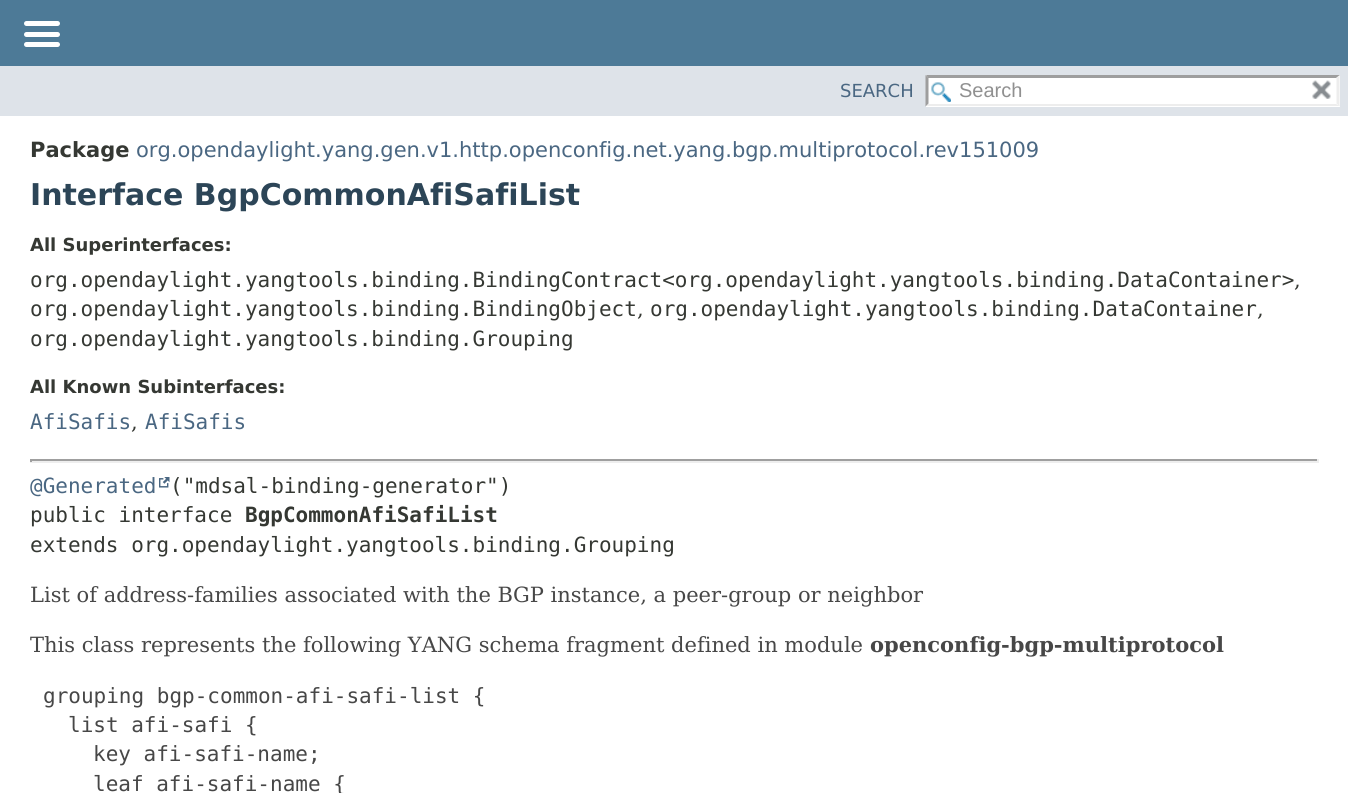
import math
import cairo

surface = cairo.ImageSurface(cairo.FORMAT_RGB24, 1348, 793)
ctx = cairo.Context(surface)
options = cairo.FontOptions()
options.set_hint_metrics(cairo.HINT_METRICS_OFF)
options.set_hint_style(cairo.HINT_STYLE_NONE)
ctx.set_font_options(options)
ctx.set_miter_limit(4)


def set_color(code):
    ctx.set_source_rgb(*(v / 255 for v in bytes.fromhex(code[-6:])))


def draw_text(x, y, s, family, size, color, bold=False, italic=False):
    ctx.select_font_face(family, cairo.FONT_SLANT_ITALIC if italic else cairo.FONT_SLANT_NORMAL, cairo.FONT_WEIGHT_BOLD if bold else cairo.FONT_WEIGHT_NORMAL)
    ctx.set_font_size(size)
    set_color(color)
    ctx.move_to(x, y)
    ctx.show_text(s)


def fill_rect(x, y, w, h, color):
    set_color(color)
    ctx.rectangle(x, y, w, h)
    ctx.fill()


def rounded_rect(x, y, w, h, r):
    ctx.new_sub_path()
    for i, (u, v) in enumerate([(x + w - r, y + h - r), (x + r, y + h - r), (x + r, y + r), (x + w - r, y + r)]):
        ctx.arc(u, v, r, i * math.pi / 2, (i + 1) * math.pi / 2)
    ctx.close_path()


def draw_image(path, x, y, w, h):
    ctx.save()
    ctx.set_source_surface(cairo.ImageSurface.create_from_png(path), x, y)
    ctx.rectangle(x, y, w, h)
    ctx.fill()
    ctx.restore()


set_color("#ffffff")
ctx.paint()
fill_rect(0, 0, 1348, 66, "#4d7a97")
set_color("#ffffff")
rounded_rect(24, 21, 36, 5, 2.5)
ctx.fill()
rounded_rect(24, 32, 36, 5, 2.5)
ctx.fill()
rounded_rect(24, 42, 36, 5, 2.5)
ctx.fill()
fill_rect(0, 66, 1348, 50, "#dee3e9")
draw_text(840, 97, "SEARCH", "DejaVu Sans", 18, "#4a6782")
fill_rect(926, 75, 414, 32, "#ffffff")
draw_image("assets/img1.png", 931, 82, 20, 20)
set_color("#9e9e9e")
ctx.new_path()
ctx.move_to(926, 75)
ctx.line_to(1340, 75)
ctx.line_to(1336, 78)
ctx.line_to(928, 78)
ctx.close_path()
ctx.fill()
set_color("#ededed")
ctx.new_path()
ctx.move_to(1339.5, 75)
ctx.line_to(1339.5, 106.5)
ctx.line_to(1336.5, 103.5)
ctx.line_to(1336.5, 78)
ctx.close_path()
ctx.fill()
ctx.new_path()
ctx.move_to(1340, 106)
ctx.line_to(926, 106)
ctx.line_to(928, 104)
ctx.line_to(1336, 104)
ctx.close_path()
ctx.fill()
set_color("#9e9e9e")
ctx.new_path()
ctx.move_to(925.5, 106.5)
ctx.line_to(925.5, 75)
ctx.line_to(928.5, 78)
ctx.line_to(928.5, 103.5)
ctx.close_path()
ctx.fill()
draw_text(959, 97, "Search", "Liberation Sans", 20, "#909090")
draw_image("assets/img2.png", 1312, 80, 19, 19)
draw_text(30, 157, "Package", "DejaVu Sans", 21, "#353833", bold=True)
draw_text(136, 157, "org.opendaylight.yang.gen.v1.http.openconfig.net.yang.bgp.multiprotocol.rev151009", "DejaVu Sans", 21, "#4a6782")
draw_text(30, 205, "Interface BgpCommonAfiSafiList", "DejaVu Sans", 30, "#2c4557", bold=True)
draw_text(30, 251, "All Superinterfaces:", "DejaVu Sans", 18, "#353833", bold=True)
draw_text(30, 287, "org.opendaylight.yangtools.binding.BindingContract<org.opendaylight.yangtools.binding.DataContainer>", "DejaVu Sans Mono", 21, "#353833")
draw_text(1294, 287, ",", "DejaVu Serif", 21, "#353833")
draw_text(30, 316, "org.opendaylight.yangtools.binding.BindingObject", "DejaVu Sans Mono", 21, "#353833")
draw_text(637, 316, ",", "DejaVu Serif", 21, "#353833")
draw_text(650, 316, "org.opendaylight.yangtools.binding.DataContainer", "DejaVu Sans Mono", 21, "#353833")
draw_text(1257, 316, ",", "DejaVu Serif", 21, "#353833")
draw_text(30, 346, "org.opendaylight.yangtools.binding.Grouping", "DejaVu Sans Mono", 21, "#353833")
draw_text(30, 393, "All Known Subinterfaces:", "DejaVu Sans", 18, "#353833", bold=True)
draw_text(30, 429, "AfiSafis", "DejaVu Sans Mono", 21, "#4a6782")
draw_text(131, 429, ",", "DejaVu Serif", 21, "#353833")
draw_text(145, 429, "AfiSafis", "DejaVu Sans Mono", 21, "#4a6782")
fill_rect(30, 459, 1289, 2, "#9f9f9f")
fill_rect(1317, 459, 2, 3, "#eeeeee")
fill_rect(30, 461, 1289, 2, "#eeeeee")
fill_rect(30, 459, 2, 3, "#9f9f9f")
draw_text(30, 493, "@Generated", "DejaVu Sans Mono", 21, "#4a6782")
draw_image("assets/img3.png", 159, 477, 11, 11)
draw_text(170, 493, "(\"mdsal-binding-generator\")", "DejaVu Sans Mono", 21, "#353833")
draw_text(30, 522, "public interface", "DejaVu Sans Mono", 21, "#353833")
draw_text(245, 522, "BgpCommonAfiSafiList", "DejaVu Sans Mono", 21, "#353833", bold=True)
draw_text(30, 552, "extends org.opendaylight.yangtools.binding.Grouping", "DejaVu Sans Mono", 21, "#353833")
draw_text(30, 602, "List of address-families associated with the BGP instance, a peer-group or neighbor", "DejaVu Serif", 21, "#474747")
draw_text(30, 652, "This class represents the following YANG schema fragment defined in module", "DejaVu Serif", 21, "#474747")
draw_text(870, 652, "openconfig-bgp-multiprotocol", "DejaVu Serif", 21, "#474747", bold=True)
draw_text(43, 703, "grouping bgp-common-afi-safi-list {", "DejaVu Sans Mono", 21, "#474747")
draw_text(68, 732, "list afi-safi {", "DejaVu Sans Mono", 21, "#474747")
draw_text(93, 761, "key afi-safi-name;", "DejaVu Sans Mono", 21, "#474747")
draw_text(93, 791, "leaf afi-safi-name {", "DejaVu Sans Mono", 21, "#474747")
surface.write_to_png("output.png")
